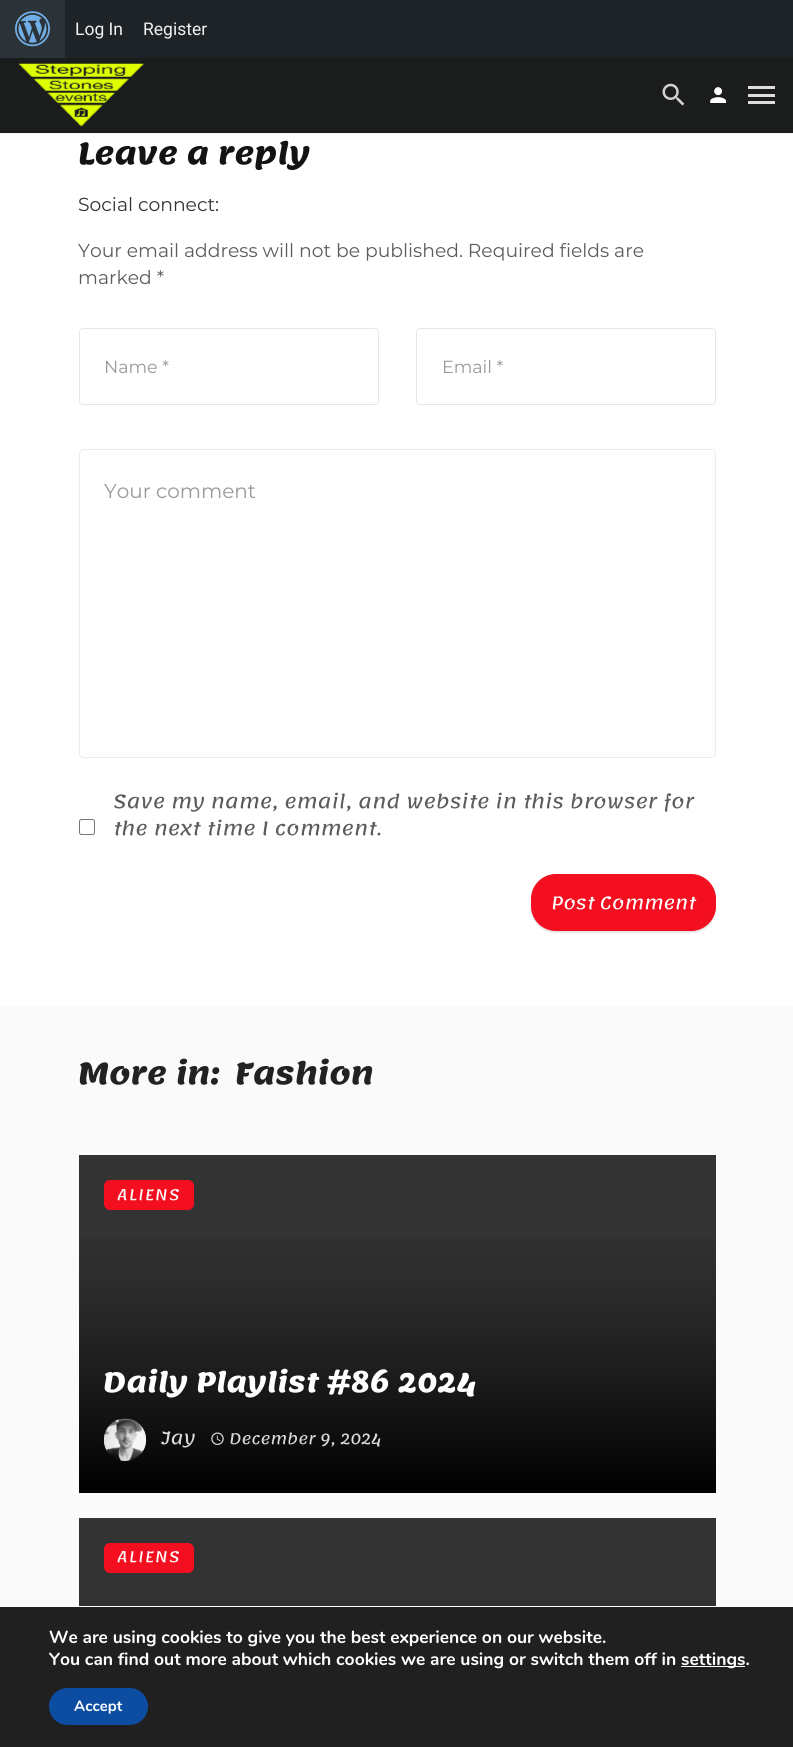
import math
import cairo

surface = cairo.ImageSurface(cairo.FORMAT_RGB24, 793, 1747)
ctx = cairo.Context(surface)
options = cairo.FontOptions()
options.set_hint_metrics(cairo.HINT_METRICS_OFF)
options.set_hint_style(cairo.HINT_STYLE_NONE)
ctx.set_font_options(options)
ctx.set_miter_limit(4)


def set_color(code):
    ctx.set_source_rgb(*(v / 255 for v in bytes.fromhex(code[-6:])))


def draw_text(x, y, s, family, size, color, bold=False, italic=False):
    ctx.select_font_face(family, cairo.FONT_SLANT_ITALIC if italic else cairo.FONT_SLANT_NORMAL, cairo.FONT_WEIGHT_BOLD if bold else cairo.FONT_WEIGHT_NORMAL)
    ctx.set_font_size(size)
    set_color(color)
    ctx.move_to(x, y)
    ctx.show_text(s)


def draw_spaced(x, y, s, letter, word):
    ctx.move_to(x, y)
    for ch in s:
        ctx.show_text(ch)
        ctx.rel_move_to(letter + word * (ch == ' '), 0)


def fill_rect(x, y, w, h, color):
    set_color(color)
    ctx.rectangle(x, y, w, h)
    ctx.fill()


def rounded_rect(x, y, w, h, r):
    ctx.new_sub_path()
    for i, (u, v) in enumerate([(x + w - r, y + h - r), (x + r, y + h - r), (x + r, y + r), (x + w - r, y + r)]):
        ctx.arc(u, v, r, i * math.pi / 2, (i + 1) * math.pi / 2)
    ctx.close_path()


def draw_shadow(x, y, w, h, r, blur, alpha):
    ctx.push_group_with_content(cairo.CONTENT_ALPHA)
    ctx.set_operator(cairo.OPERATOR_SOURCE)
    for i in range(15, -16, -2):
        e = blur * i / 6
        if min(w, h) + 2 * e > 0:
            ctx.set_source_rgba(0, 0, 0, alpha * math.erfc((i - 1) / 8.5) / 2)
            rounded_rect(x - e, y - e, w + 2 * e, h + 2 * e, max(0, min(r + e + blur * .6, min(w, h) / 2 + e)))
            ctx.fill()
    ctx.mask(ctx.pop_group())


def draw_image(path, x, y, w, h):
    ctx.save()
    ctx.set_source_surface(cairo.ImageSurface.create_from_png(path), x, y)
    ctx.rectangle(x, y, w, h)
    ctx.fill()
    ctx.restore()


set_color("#ffffff")
ctx.paint()
fill_rect(65, 0, 728, 58, "#1d2327")
fill_rect(0, 0, 65, 58, "#2c3338")
draw_image("assets/img1.png", 15, 11, 35, 36)
draw_text(75, 35, "Log In", "Roboto", 17.5, "#f0f0f1")
draw_text(143, 35, "Register", "Roboto", 17.5, "#f0f0f1")
set_color("#f5f5f5")
ctx.new_path()
ctx.move_to(0, 132)
ctx.line_to(0, 134)
ctx.line_to(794, 134)
ctx.line_to(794, 59)
ctx.line_to(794, 132)
ctx.close_path()
ctx.fill()
fill_rect(0, 58, 793, 75, "#1b1d1c")
draw_image("assets/img2.png", 18, 63, 126, 64)
draw_image("assets/img3.png", 662, 83, 23, 23)
draw_image("assets/img4.png", 710, 87, 17, 16)
fill_rect(748, 94, 27, 3, "#dddddd")
fill_rect(748, 86, 27, 3, "#dddddd")
fill_rect(748, 101, 27, 3, "#dddddd")
draw_text(78, 164, "Leave a reply", "Lemonada", 30, "#131313", bold=True)
draw_text(78, 211, "Social connect:", "Montserrat", 18.75, "#333333")
draw_text(78, 257, "Your email address will not be published. Required fields are", "Montserrat", 18.75, "#5c5c5c")
draw_text(78, 284, "marked *", "Montserrat", 18.75, "#5c5c5c")
rounded_rect(79.5, 328.5, 299, 76, 3.5)
set_color("#e6e6e6")
ctx.set_line_width(1)
ctx.stroke()
draw_text(104, 373, "Name *", "Montserrat", 17.5, "#999999")
rounded_rect(416.5, 328.5, 299, 76, 3.5)
set_color("#e6e6e6")
ctx.stroke()
draw_text(442, 373, "Email *", "Montserrat", 17.5, "#999999")
rounded_rect(79.5, 449.5, 636, 308, 4.5)
set_color("#ebebf7")
ctx.stroke()
draw_text(104, 498, "Your comment", "Montserrat", 20, "#999999")
rounded_rect(79.5, 819.5, 15, 15, 2)
set_color("#767676")
ctx.stroke()
draw_text(113, 808, "Save my name, email, and website in this browser for", "Lemonada", 18.75, "#5c5c5c")
draw_text(113, 835, "the next time I comment.", "Lemonada", 18.75, "#5c5c5c")
set_color("#000000")
draw_shadow(531, 875, 185, 58, 25, 0.5, 0.1)
set_color("#f30f1f")
rounded_rect(531.5, 874.5, 184, 56, 24.5)
ctx.fill_preserve()
ctx.stroke()
draw_text(551, 909, "Post Comment", "Lemonada", 17.5, "#ffffff")
fill_rect(0, 1006, 793, 600, "#fafafa")
draw_text(78, 1084, "More in:", "Lemonada", 30, "#222222", bold=True)
draw_text(235, 1084, "Fashion", "Lemonada", 30, "#222222", bold=True)
fill_rect(79, 1155, 637, 337, "#333333")
set_color("#f30f1f")
rounded_rect(104, 1180, 90, 30, 6)
ctx.fill()
ctx.select_font_face("Lemonada")
ctx.set_font_size(15)
set_color("#ffffff")
draw_spaced(117, 1200, "ALIENS", 1.25, 0)
gradient = cairo.LinearGradient(398, 1493, 398, 1170)
gradient.add_color_stop_rgba(0, 0, 0, 0, 1)
gradient.add_color_stop_rgba(0.05, 0, 0, 0, 0.92)
gradient.add_color_stop_rgba(0.11, 0, 0, 0, 0.83)
gradient.add_color_stop_rgba(0.16, 0, 0, 0, 0.75)
gradient.add_color_stop_rgba(0.21, 0, 0, 0, 0.67)
gradient.add_color_stop_rgba(0.27, 0, 0, 0, 0.59)
gradient.add_color_stop_rgba(0.33, 0, 0, 0, 0.51)
gradient.add_color_stop_rgba(0.38, 0, 0, 0, 0.43)
gradient.add_color_stop_rgba(0.45, 0, 0, 0, 0.36)
gradient.add_color_stop_rgba(0.51, 0, 0, 0, 0.28)
gradient.add_color_stop_rgba(0.58, 0, 0, 0, 0.21)
gradient.add_color_stop_rgba(0.65, 0, 0, 0, 0.14)
gradient.add_color_stop_rgba(0.73, 0, 0, 0, 0.09)
gradient.add_color_stop_rgba(0.81, 0, 0, 0, 0.04)
gradient.add_color_stop_rgba(0.91, 0, 0, 0, 0.01)
gradient.add_color_stop_rgba(1, 0, 0, 0, 0)
ctx.set_source(gradient)
ctx.rectangle(79, 1238, 637, 255)
ctx.fill()
draw_text(103, 1392, "Daily Playlist #86 2024", "Lemonada", 27.5, "#ffffff", bold=True)
draw_image("assets/img5.png", 103, 1418, 44, 43)
draw_text(161, 1444, "Jay", "Lemonada", 17.5, "#dbdbdb")
draw_image("assets/img6.png", 211, 1432, 13, 13)
draw_text(229, 1444, "December 9, 2024", "Lemonada", 15, "#dbdbdb")
fill_rect(79, 1518, 637, 88, "#333333")
set_color("#f30f1f")
rounded_rect(104, 1543, 90, 30, 6)
ctx.fill()
set_color("#ffffff")
draw_spaced(117, 1562, "ALIENS", 1.25, 0)
gradient = cairo.LinearGradient(398, 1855, 398, 1533)
gradient.add_color_stop_rgba(0, 0, 0, 0, 1)
gradient.add_color_stop_rgba(0.05, 0, 0, 0, 0.92)
gradient.add_color_stop_rgba(0.11, 0, 0, 0, 0.83)
gradient.add_color_stop_rgba(0.16, 0, 0, 0, 0.75)
gradient.add_color_stop_rgba(0.21, 0, 0, 0, 0.67)
gradient.add_color_stop_rgba(0.27, 0, 0, 0, 0.59)
gradient.add_color_stop_rgba(0.33, 0, 0, 0, 0.51)
gradient.add_color_stop_rgba(0.38, 0, 0, 0, 0.43)
gradient.add_color_stop_rgba(0.45, 0, 0, 0, 0.36)
gradient.add_color_stop_rgba(0.51, 0, 0, 0, 0.28)
gradient.add_color_stop_rgba(0.58, 0, 0, 0, 0.21)
gradient.add_color_stop_rgba(0.65, 0, 0, 0, 0.14)
gradient.add_color_stop_rgba(0.73, 0, 0, 0, 0.09)
gradient.add_color_stop_rgba(0.81, 0, 0, 0, 0.04)
gradient.add_color_stop_rgba(0.91, 0, 0, 0, 0.01)
gradient.add_color_stop_rgba(1, 0, 0, 0, 0)
ctx.set_source(gradient)
ctx.rectangle(79, 1601, 637, 5)
ctx.fill()
fill_rect(0, 1607, 793, 140, "#202020")
draw_text(49, 1643, "We are using cookies to give you the best experience on our website.", "Nunito", 17.5, "#ffffff", bold=True)
draw_text(49, 1665, "You can find out more about which cookies we are using or switch them off in", "Nunito", 17.5, "#ffffff", bold=True)
fill_rect(681, 1666, 64, 1, "#ffffff")
draw_text(681, 1665, "settings.", "Nunito", 17.5, "#ffffff", bold=True)
set_color("#0c4da2")
rounded_rect(49, 1688, 99, 37, 18.5)
ctx.fill()
draw_text(74, 1711, "Accept", "Nunito", 15, "#ffffff", bold=True)
surface.write_to_png("output.png")
